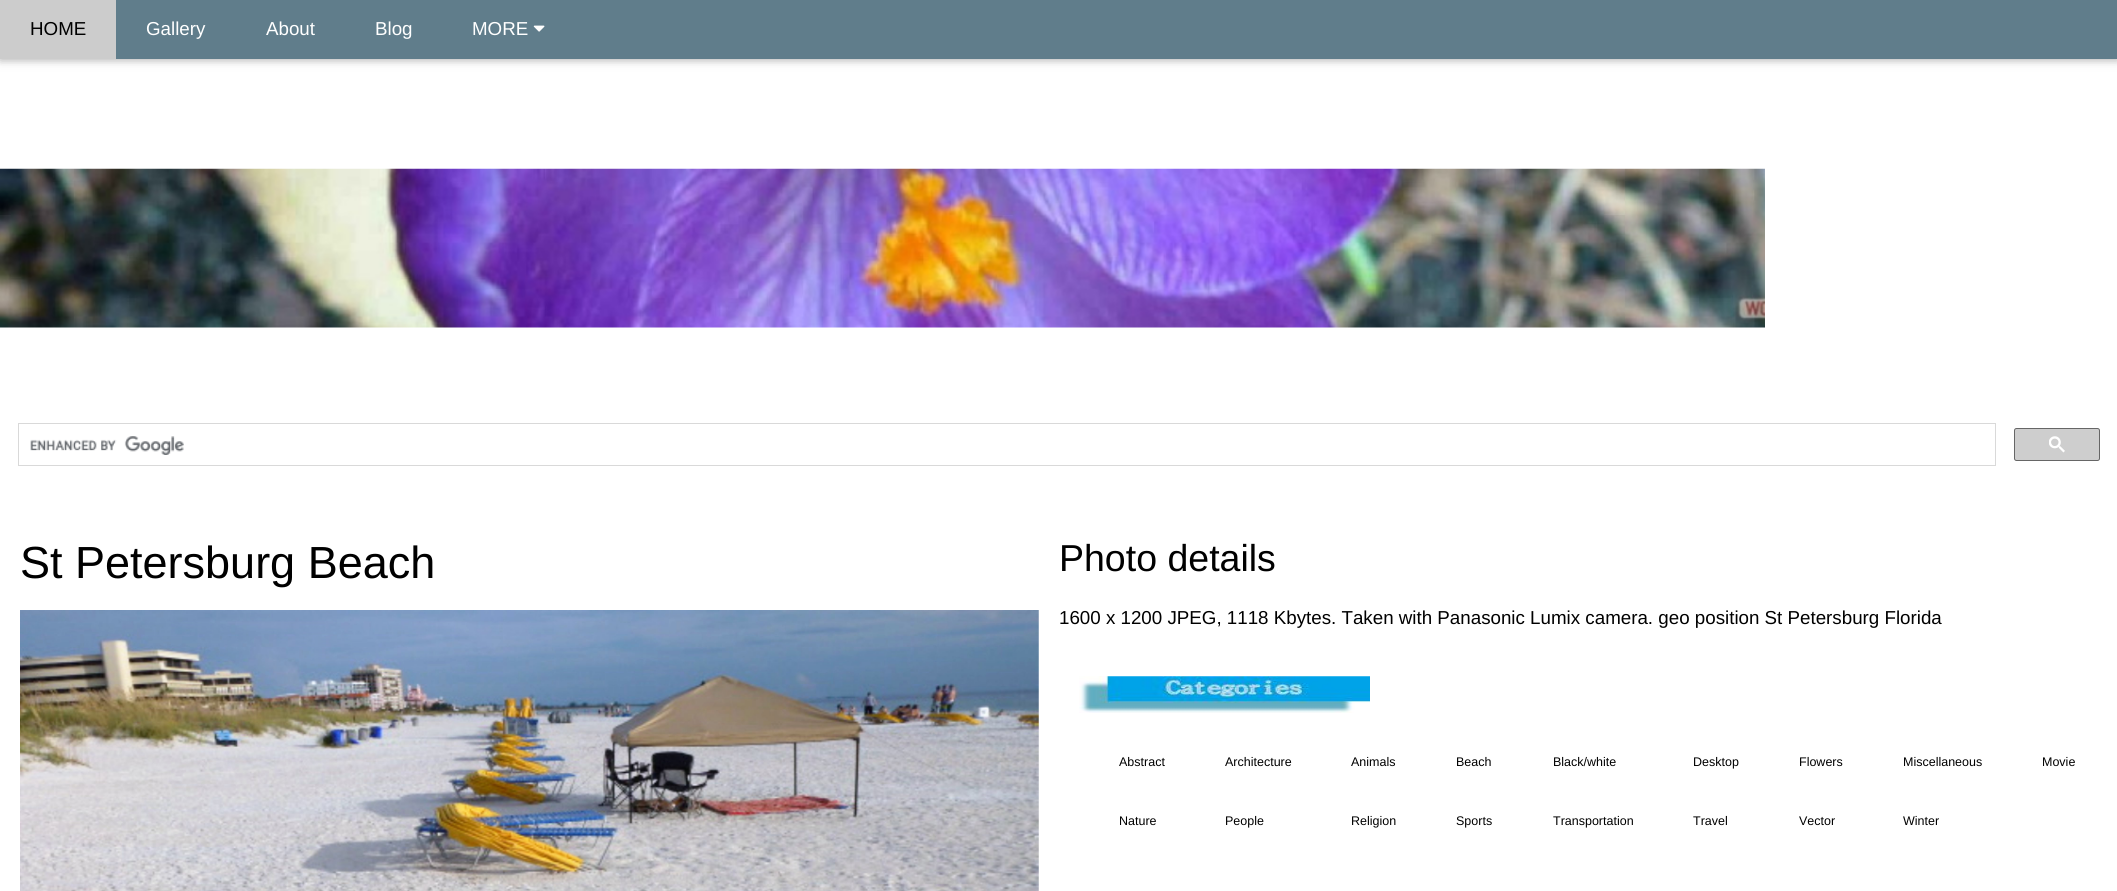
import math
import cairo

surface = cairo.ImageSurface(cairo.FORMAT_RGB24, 2117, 891)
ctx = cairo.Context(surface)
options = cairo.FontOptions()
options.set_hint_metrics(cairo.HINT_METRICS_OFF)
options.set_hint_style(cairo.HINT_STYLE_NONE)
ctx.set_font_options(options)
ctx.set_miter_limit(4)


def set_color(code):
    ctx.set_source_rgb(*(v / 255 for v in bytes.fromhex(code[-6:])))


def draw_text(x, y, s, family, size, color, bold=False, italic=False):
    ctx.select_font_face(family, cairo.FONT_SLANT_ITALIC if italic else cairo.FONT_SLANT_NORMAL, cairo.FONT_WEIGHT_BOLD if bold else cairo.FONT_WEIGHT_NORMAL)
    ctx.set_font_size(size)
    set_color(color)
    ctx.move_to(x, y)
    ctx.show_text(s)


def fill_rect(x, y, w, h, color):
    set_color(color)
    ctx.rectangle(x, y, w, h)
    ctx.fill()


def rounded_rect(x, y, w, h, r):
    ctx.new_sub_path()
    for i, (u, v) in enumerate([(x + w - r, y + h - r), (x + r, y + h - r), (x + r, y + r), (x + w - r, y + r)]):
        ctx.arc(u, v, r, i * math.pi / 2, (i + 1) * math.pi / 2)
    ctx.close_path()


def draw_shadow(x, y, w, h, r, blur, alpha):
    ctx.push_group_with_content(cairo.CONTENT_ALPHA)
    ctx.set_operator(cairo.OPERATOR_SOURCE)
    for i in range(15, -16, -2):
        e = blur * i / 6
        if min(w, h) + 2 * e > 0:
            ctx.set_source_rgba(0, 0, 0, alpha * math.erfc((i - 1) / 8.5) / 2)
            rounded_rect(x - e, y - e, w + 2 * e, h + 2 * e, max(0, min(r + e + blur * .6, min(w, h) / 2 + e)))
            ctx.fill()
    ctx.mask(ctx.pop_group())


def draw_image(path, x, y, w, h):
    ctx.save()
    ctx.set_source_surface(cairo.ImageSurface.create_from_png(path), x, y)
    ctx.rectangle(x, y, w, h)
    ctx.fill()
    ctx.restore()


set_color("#ffffff")
ctx.paint()
set_color("#000000")
draw_shadow(0, 3, 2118, 58, 0, 6, 0.12)
draw_shadow(0, 3, 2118, 58, 0, 3, 0.16)
fill_rect(116, 0, 2001, 59, "#607d8b")
fill_rect(0, 0, 116, 59, "#cccccc")
draw_text(30, 35, "HOME", "Liberation Sans", 18.75, "#000000")
draw_text(146, 35, "Gallery", "Liberation Sans", 18.75, "#ffffff")
draw_text(266, 35, "About", "Liberation Sans", 18.75, "#ffffff")
draw_text(375, 35, "Blog", "Liberation Sans", 18.75, "#ffffff")
draw_text(472, 35, "MORE", "Liberation Sans", 18.75, "#ffffff")
draw_image("assets/img1.png", 533, 25, 12, 7)
draw_image("assets/img2.png", 0, 168, 1765, 160)
ctx.rectangle(18.5, 423.5, 1977, 42)
set_color("#d9d9d9")
ctx.set_line_width(1)
ctx.stroke()
draw_image("assets/img3.png", 30, 436, 154, 19)
set_color("#cecece")
rounded_rect(2014.5, 428.5, 85, 32, 2)
ctx.fill_preserve()
set_color("#666666")
ctx.stroke()
draw_image("assets/img4.png", 2049, 436, 16, 17)
draw_text(20, 578, "St Petersburg Beach", "Liberation Sans", 45, "#000000")
draw_image("assets/img5.png", 20, 610, 1019, 281)
draw_text(1059, 571, "Photo details", "Liberation Sans", 37.5, "#000000")
draw_text(1059, 624, "1600 x 1200 JPEG, 1118 Kbytes. Taken with Panasonic Lumix camera. geo position St Petersburg Florida", "Liberation Sans", 18.75, "#000000")
draw_image("assets/img6.png", 1079, 676, 291, 37)
draw_text(1119, 766, "Abstract", "Liberation Sans", 12.5, "#000000")
draw_text(1225, 766, "Architecture", "Liberation Sans", 12.5, "#000000")
draw_text(1351, 766, "Animals", "Liberation Sans", 12.5, "#000000")
draw_text(1456, 766, "Beach", "Liberation Sans", 12.5, "#000000")
draw_text(1553, 766, "Black/white", "Liberation Sans", 12.5, "#000000")
draw_text(1693, 766, "Desktop", "Liberation Sans", 12.5, "#000000")
draw_text(1799, 766, "Flowers", "Liberation Sans", 12.5, "#000000")
draw_text(1903, 766, "Miscellaneous", "Liberation Sans", 12.5, "#000000")
draw_text(2042, 766, "Movie", "Liberation Sans", 12.5, "#000000")
draw_text(1119, 825, "Nature", "Liberation Sans", 12.5, "#000000")
draw_text(1225, 825, "People", "Liberation Sans", 12.5, "#000000")
draw_text(1351, 825, "Religion", "Liberation Sans", 12.5, "#000000")
draw_text(1456, 825, "Sports", "Liberation Sans", 12.5, "#000000")
draw_text(1553, 825, "Transportation", "Liberation Sans", 12.5, "#000000")
draw_text(1693, 825, "Travel", "Liberation Sans", 12.5, "#000000")
draw_text(1799, 825, "Vector", "Liberation Sans", 12.5, "#000000")
draw_text(1903, 825, "Winter", "Liberation Sans", 12.5, "#000000")
surface.write_to_png("output.png")
